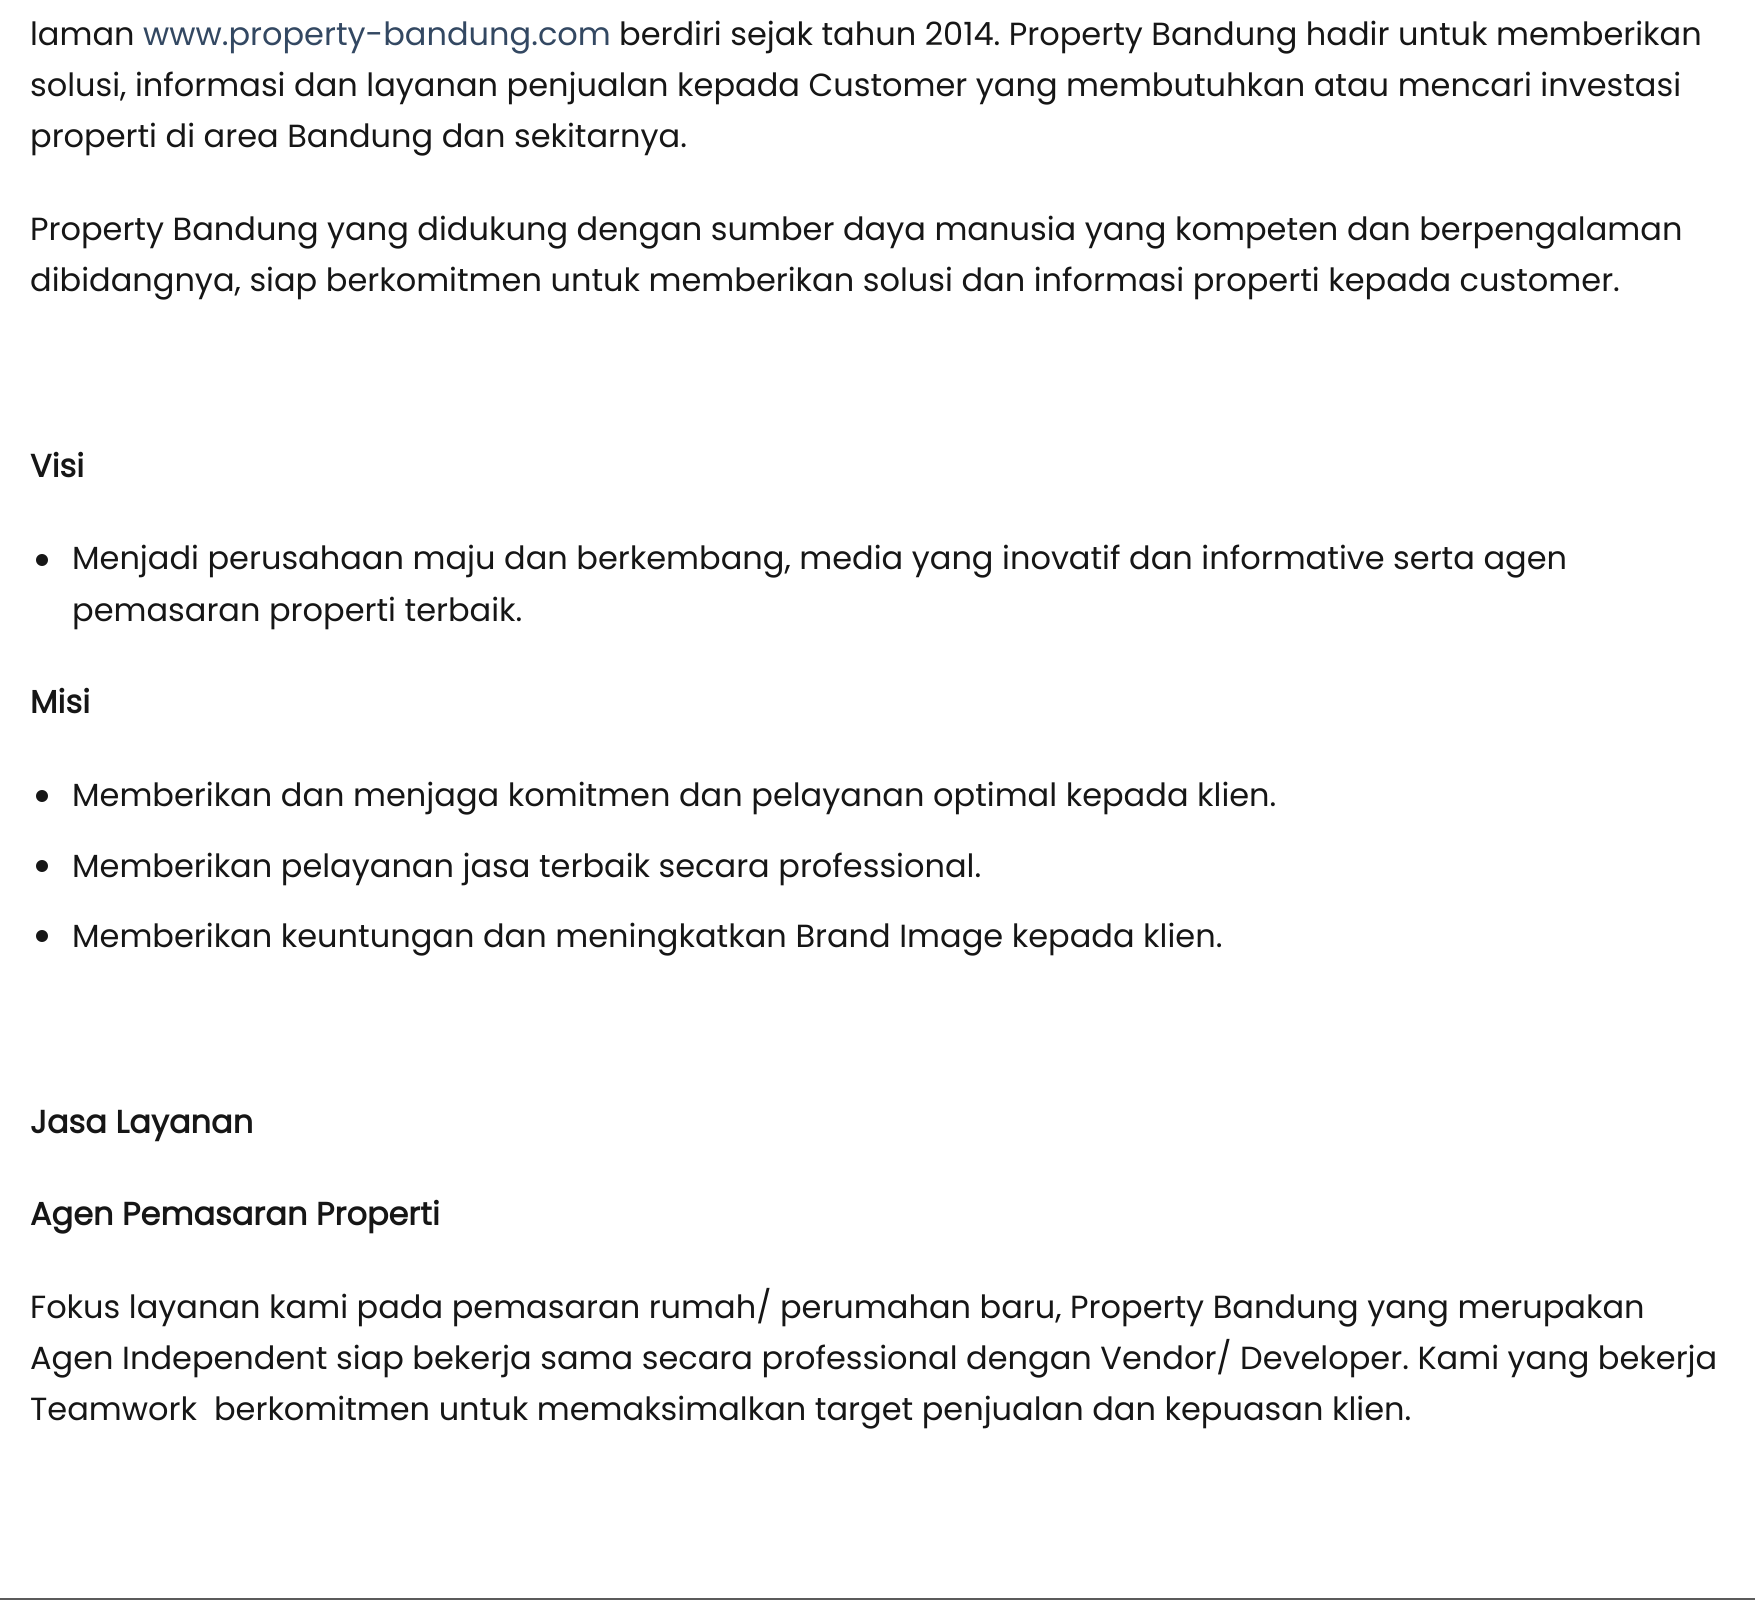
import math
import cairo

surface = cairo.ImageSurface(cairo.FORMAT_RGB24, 1755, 1600)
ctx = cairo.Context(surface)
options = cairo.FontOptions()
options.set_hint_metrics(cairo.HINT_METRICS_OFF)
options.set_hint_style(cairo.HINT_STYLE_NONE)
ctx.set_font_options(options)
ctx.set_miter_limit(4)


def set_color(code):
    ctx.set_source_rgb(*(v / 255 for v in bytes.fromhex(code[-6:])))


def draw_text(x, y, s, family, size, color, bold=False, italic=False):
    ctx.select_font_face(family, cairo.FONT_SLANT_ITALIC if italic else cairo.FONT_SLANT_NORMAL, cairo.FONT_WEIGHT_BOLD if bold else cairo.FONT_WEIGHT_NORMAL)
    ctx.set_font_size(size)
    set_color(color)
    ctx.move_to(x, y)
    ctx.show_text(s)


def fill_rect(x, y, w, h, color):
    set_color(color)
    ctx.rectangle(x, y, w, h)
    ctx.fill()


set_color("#ffffff")
ctx.paint()
draw_text(30, 45, "laman", "Poppins", 32, "#161616")
draw_text(143, 45, "www.property-bandung.com", "Poppins", 32, "#334862")
draw_text(619, 45, "berdiri sejak tahun 2014. Property Bandung hadir untuk memberikan", "Poppins", 32, "#161616")
draw_text(30, 96, "solusi, informasi dan layanan penjualan kepada Customer yang membutuhkan atau mencari investasi", "Poppins", 32, "#161616")
draw_text(30, 147, "properti di area Bandung dan sekitarnya.", "Poppins", 32, "#161616")
draw_text(30, 240, "Property Bandung yang didukung dengan sumber daya manusia yang kompeten dan berpengalaman", "Poppins", 32, "#161616")
draw_text(30, 291, "dibidangnya, siap berkomitmen untuk memberikan solusi dan informasi properti kepada customer.", "Poppins", 32, "#161616")
draw_text(30, 477, "Visi", "Poppins", 32, "#161616", bold=True)
ctx.new_path()
ctx.arc(42, 560, 6, 0, 2 * math.pi)
ctx.fill()
draw_text(72, 569, "Menjadi perusahaan maju dan berkembang, media yang inovatif dan informative serta agen", "Poppins", 32, "#161616")
draw_text(72, 621, "pemasaran properti terbaik.", "Poppins", 32, "#161616")
draw_text(30, 713, "Misi", "Poppins", 32, "#161616", bold=True)
ctx.new_path()
ctx.arc(42, 796, 6, 0, 2 * math.pi)
ctx.fill()
draw_text(72, 806, "Memberikan dan menjaga komitmen dan pelayanan optimal kepada klien.", "Poppins", 32, "#161616")
ctx.new_path()
ctx.arc(42, 866, 6, 0, 2 * math.pi)
ctx.fill()
draw_text(72, 877, "Memberikan pelayanan jasa terbaik secara professional.", "Poppins", 32, "#161616")
ctx.new_path()
ctx.arc(42, 936, 6, 0, 2 * math.pi)
ctx.fill()
draw_text(72, 947, "Memberikan keuntungan dan meningkatkan Brand Image kepada klien.", "Poppins", 32, "#161616")
draw_text(30, 1133, "Jasa Layanan", "Poppins", 32, "#161616", bold=True)
draw_text(30, 1225, "Agen Pemasaran Properti", "Poppins", 32, "#161616", bold=True)
draw_text(30, 1318, "Fokus layanan kami pada pemasaran rumah/ perumahan baru, Property Bandung yang merupakan", "Poppins", 32, "#161616")
draw_text(30, 1369, "Agen Independent siap bekerja sama secara professional dengan Vendor/ Developer. Kami yang bekerja", "Poppins", 32, "#161616")
draw_text(30, 1420, "Teamwork  berkomitmen untuk memaksimalkan target penjualan dan kepuasan klien.", "Poppins", 32, "#161616")
fill_rect(0, 1598, 1755, 2, "#5b5b5b")
surface.write_to_png("output.png")
